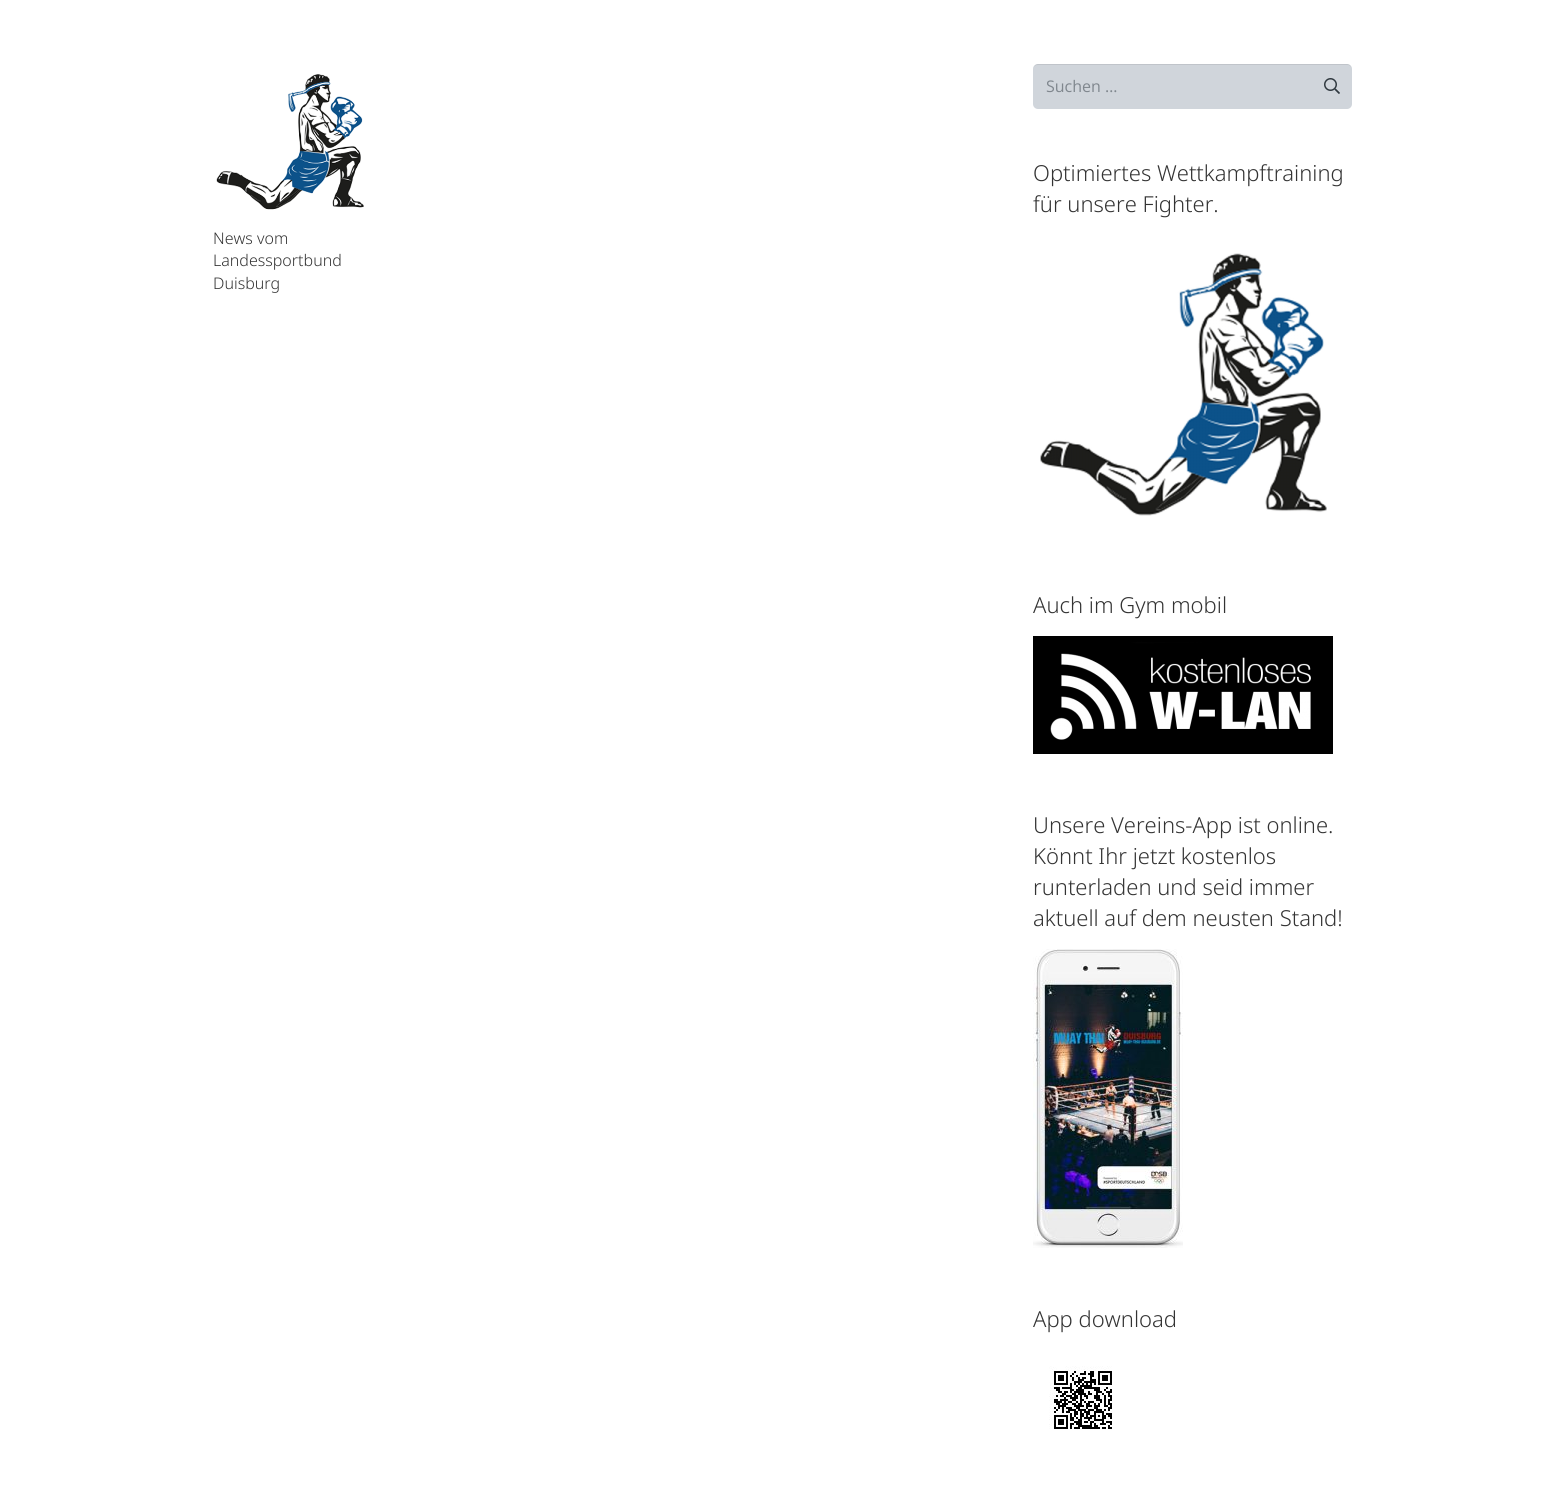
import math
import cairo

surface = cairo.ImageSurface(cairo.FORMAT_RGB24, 1565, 1494)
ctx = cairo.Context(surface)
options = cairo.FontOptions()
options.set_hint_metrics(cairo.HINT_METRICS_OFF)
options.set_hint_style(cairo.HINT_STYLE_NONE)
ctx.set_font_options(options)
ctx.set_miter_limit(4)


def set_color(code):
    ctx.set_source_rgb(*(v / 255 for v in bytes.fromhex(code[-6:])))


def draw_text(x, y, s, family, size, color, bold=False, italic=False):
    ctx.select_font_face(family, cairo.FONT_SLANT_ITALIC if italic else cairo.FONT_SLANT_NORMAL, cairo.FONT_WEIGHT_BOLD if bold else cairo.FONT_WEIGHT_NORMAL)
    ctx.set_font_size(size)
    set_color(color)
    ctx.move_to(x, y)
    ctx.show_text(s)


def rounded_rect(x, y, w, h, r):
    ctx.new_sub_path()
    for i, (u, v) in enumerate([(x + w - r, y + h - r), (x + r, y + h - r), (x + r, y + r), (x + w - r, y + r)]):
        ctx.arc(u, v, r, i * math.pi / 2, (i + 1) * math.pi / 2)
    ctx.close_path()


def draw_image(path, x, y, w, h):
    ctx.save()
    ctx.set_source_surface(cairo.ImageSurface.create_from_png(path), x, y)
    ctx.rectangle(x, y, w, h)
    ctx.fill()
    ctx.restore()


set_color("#ffffff")
ctx.paint()
draw_image("assets/img1.png", 216, 74, 148, 136)
draw_text(213, 244, "News vom", "Noto Sans Light", 16, "#333333")
draw_text(213, 266, "Landessportbund", "Noto Sans Light", 16, "#333333")
draw_text(213, 289, "Duisburg", "Noto Sans Light", 16, "#333333")
set_color("#d0d5db")
rounded_rect(1033, 64, 319, 45, 5)
ctx.fill()
ctx.set_source_rgba(0, 0, 0, 0.08)
ctx.new_path()
ctx.move_to(1038, 65)
ctx.line_to(1347, 65)
ctx.curve_to(1350, 65, 1352, 67, 1352, 70)
ctx.curve_to(1352, 67, 1350, 64, 1347, 64)
ctx.line_to(1038, 64)
ctx.curve_to(1035, 64, 1033, 67, 1033, 70)
ctx.curve_to(1033, 67, 1035, 65, 1038, 65)
ctx.close_path()
ctx.fill()
draw_text(1046, 92, "Suchen …", "Open Sans", 16, "#80878e")
draw_image("assets/img2.png", 1324, 78, 16, 16)
draw_text(1033, 181, "Optimiertes Wettkampftraining", "Noto Sans Light", 22, "#333333")
draw_text(1033, 212, "für unsere Fighter.", "Noto Sans Light", 22, "#333333")
draw_image("assets/img3.png", 1040, 253, 287, 263)
draw_text(1033, 613, "Auch im Gym mobil", "Noto Sans Light", 22, "#333333")
draw_image("assets/img4.png", 1033, 636, 300, 118)
draw_text(1033, 833, "Unsere Vereins-App ist online.", "Noto Sans Light", 22, "#333333")
draw_text(1033, 864, "Könnt Ihr jetzt kostenlos", "Noto Sans Light", 22, "#333333")
draw_text(1033, 895, "runterladen und seid immer", "Noto Sans Light", 22, "#333333")
draw_text(1033, 926, "aktuell auf dem neusten Stand!", "Noto Sans Light", 22, "#333333")
draw_image("assets/img5.png", 1033, 949, 150, 299)
draw_text(1033, 1327, "App download", "Noto Sans Light", 22, "#333333")
draw_image("assets/img6.png", 1049, 1366, 63, 64)
surface.write_to_png("output.png")
